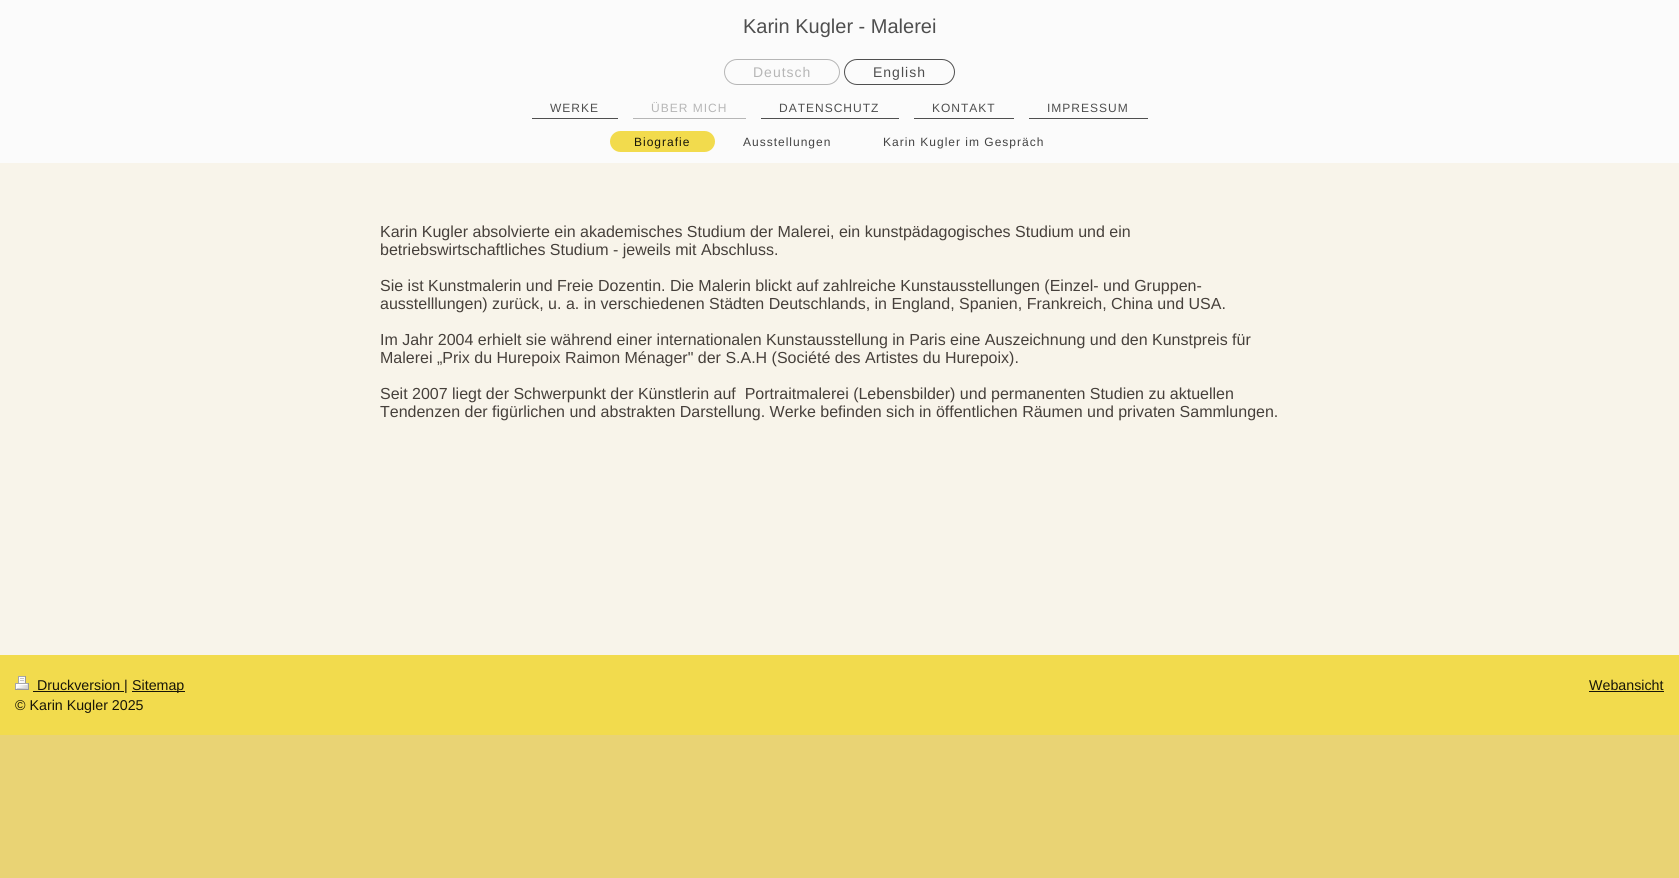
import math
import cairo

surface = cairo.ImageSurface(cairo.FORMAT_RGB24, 1679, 878)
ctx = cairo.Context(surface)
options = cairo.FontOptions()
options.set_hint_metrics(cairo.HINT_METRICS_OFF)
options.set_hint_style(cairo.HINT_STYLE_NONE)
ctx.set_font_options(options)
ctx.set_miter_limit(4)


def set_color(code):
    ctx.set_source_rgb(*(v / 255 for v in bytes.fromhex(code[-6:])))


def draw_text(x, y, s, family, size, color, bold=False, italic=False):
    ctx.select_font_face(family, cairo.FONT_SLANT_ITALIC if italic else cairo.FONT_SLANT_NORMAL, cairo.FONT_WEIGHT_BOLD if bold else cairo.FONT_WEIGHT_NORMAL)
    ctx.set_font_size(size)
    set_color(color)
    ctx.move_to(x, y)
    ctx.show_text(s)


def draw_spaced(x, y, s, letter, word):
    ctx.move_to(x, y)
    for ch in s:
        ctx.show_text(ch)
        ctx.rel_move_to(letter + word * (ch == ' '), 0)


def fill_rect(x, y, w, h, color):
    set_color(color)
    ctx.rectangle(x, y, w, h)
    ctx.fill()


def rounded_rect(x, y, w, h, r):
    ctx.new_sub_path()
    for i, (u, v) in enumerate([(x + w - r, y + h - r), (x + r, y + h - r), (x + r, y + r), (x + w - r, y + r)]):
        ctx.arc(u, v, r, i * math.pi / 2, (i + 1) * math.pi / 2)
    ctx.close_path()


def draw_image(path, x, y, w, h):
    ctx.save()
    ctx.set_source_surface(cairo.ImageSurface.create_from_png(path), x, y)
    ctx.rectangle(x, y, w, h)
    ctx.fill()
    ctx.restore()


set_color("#e9d374")
ctx.paint()
fill_rect(0, 0, 1679, 163, "#fbfbfb")
draw_text(743, 33, "Karin Kugler - Malerei", "Liberation Sans", 20, "#4f4f4f")
rounded_rect(724.5, 59.5, 115, 25, 12.5)
set_color("#b6b6b6")
ctx.set_line_width(1)
ctx.stroke()
ctx.set_font_size(14)
draw_spaced(753, 77, "Deutsch", 1, 0)
rounded_rect(844.5, 59.5, 110, 25, 12.5)
set_color("#4f4f4f")
ctx.stroke()
draw_spaced(873, 77, "English", 1, 0)
fill_rect(532, 118, 86, 1, "#4f4f4f")
ctx.set_font_size(12)
draw_spaced(550, 112, "WERKE", 1, 0)
fill_rect(633, 118, 113, 1, "#b6b6b6")
draw_spaced(651, 112, "ÜBER MICH", 1, 0)
fill_rect(761, 118, 138, 1, "#4f4f4f")
draw_spaced(779, 112, "DATENSCHUTZ", 1, 0)
fill_rect(914, 118, 100, 1, "#4f4f4f")
draw_spaced(932, 112, "KONTAKT", 1, 0)
fill_rect(1029, 118, 119, 1, "#4f4f4f")
draw_spaced(1047, 112, "IMPRESSUM", 1, 0)
set_color("#f2db4d")
rounded_rect(610, 131, 105, 21, 10.5)
ctx.fill()
set_color("#181608")
draw_spaced(634, 146, "Biografie", 1, 0)
set_color("#434343")
draw_spaced(743, 146, "Ausstellungen", 1, 0)
draw_spaced(883, 146, "Karin Kugler im Gespräch", 1, 0)
fill_rect(0, 163, 1679, 492, "#f8f4ea")
draw_text(380, 237, "Karin Kugler absolvierte ein akademisches Studium der Malerei, ein kunstpädagogisches Studium und ein", "Liberation Sans", 16, "#46403b")
draw_text(380, 255, "betriebswirtschaftliches Studium - jeweils mit Abschluss.", "Liberation Sans", 16, "#46403b")
draw_text(380, 291, "Sie ist Kunstmalerin und Freie Dozentin. Die Malerin blickt auf zahlreiche Kunstausstellungen (Einzel- und Gruppen-", "Liberation Sans", 16, "#46403b")
draw_text(380, 309, "ausstelllungen) zurück, u. a. in verschiedenen Städten Deutschlands, in England, Spanien, Frankreich, China und USA.", "Liberation Sans", 16, "#46403b")
draw_text(380, 345, "Im Jahr 2004 erhielt sie während einer internationalen Kunstausstellung in Paris eine Auszeichnung und den Kunstpreis für", "Liberation Sans", 16, "#46403b")
draw_text(380, 363, "Malerei „Prix du Hurepoix Raimon Ménager\" der S.A.H (Société des Artistes du Hurepoix).", "Liberation Sans", 16, "#46403b")
draw_text(380, 399, "Seit 2007 liegt der Schwerpunkt der Künstlerin auf  Portraitmalerei (Lebensbilder) und permanenten Studien zu aktuellen", "Liberation Sans", 16, "#46403b")
draw_text(380, 417, "Tendenzen der figürlichen und abstrakten Darstellung. Werke befinden sich in öffentlichen Räumen und privaten Sammlungen.", "Liberation Sans", 16, "#46403b")
fill_rect(0, 655, 1679, 80, "#f2db4d")
draw_image("assets/img1.png", 15, 676, 14, 14)
fill_rect(33, 691, 91, 1, "#181608")
draw_text(37, 690, "Druckversion |", "Liberation Sans", 14.25, "#181608")
fill_rect(132, 691, 53, 1, "#181608")
draw_text(132, 690, "Sitemap", "Liberation Sans", 14.25, "#181608")
draw_text(15, 710, "© Karin Kugler 2025", "Liberation Sans", 14.25, "#181608")
draw_text(1589, 690, "Webansicht", "Liberation Sans", 14.25, "#181608")
fill_rect(1589, 691, 75, 1, "#181608")
surface.write_to_png("output.png")
